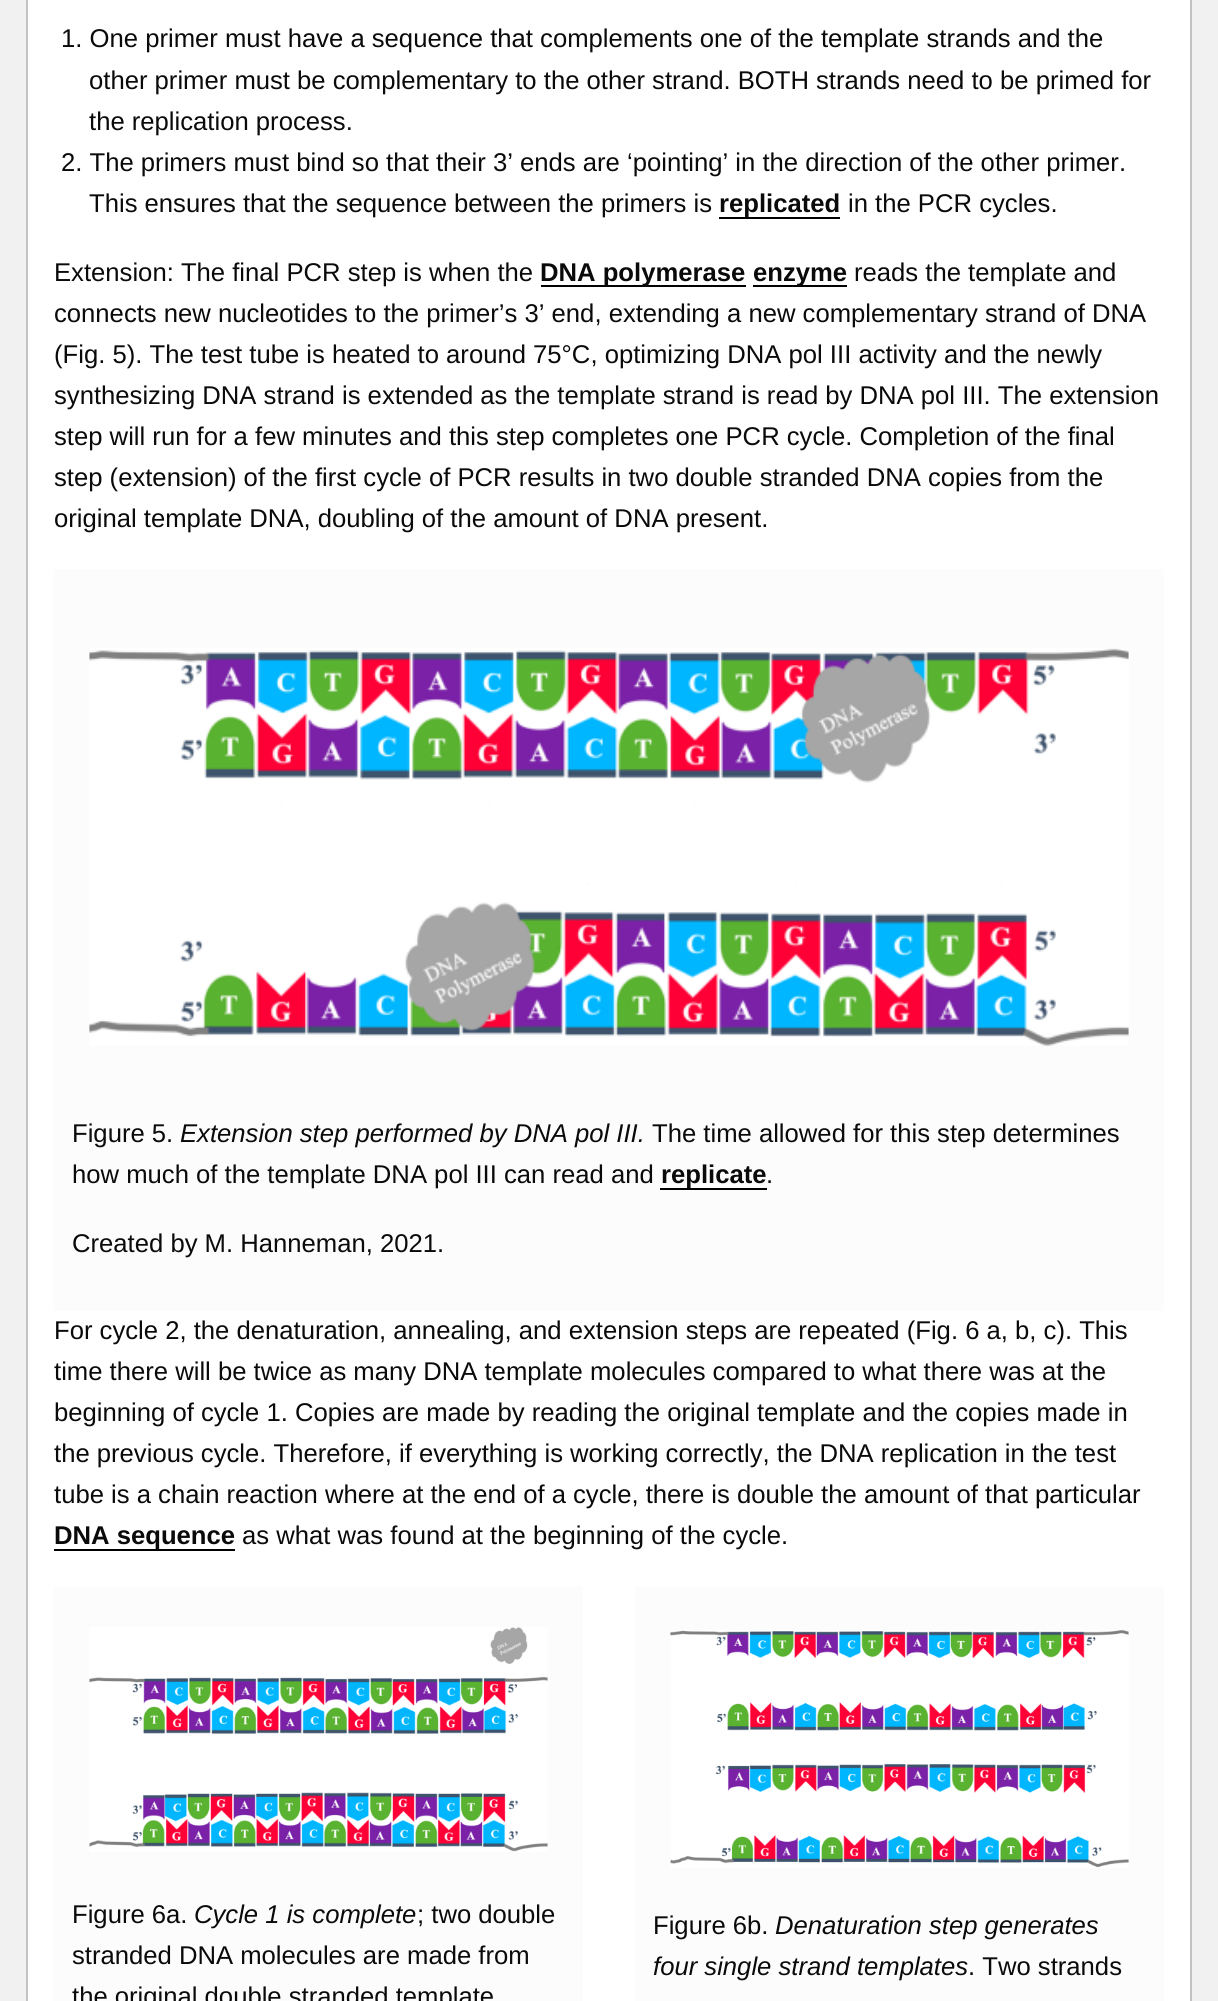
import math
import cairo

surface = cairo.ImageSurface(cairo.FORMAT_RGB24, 1218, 2001)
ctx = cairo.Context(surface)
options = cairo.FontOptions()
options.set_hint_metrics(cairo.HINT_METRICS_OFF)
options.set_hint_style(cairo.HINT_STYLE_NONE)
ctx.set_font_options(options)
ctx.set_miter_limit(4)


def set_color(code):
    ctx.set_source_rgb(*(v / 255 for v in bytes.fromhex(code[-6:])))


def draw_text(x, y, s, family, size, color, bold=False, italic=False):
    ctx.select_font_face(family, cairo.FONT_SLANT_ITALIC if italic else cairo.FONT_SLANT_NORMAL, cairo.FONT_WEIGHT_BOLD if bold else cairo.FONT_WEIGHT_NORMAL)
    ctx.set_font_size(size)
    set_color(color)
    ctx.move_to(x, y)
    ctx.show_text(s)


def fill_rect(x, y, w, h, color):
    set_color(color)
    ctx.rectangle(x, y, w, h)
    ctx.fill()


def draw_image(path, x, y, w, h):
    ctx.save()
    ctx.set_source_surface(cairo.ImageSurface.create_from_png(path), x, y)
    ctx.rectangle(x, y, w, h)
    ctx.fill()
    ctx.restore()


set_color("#f1f1f1")
ctx.paint()
set_color("#ffffff")
ctx.rectangle(27, -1, 1164, 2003)
ctx.fill_preserve()
set_color("#c2c2c2")
ctx.stroke()
draw_text(61, 47, "1. One primer must have a sequence that complements one of the template strands and the", "Liberation Sans", 25.65, "#0a0a0a")
draw_text(89, 89, "other primer must be complementary to the other strand. BOTH strands need to be primed for", "Liberation Sans", 25.65, "#0a0a0a")
draw_text(89, 130, "the replication process.", "Liberation Sans", 25.65, "#0a0a0a")
draw_text(61, 171, "2. The primers must bind so that their 3’ ends are ‘pointing’ in the direction of the other primer.", "Liberation Sans", 25.65, "#0a0a0a")
draw_text(89, 212, "This ensures that the sequence between the primers is", "Liberation Sans", 25.65, "#0a0a0a")
fill_rect(719, 217, 121, 2, "#000000")
draw_text(719, 212, "replicated", "Liberation Sans", 25.65, "#0a0a0a", bold=True)
draw_text(848, 212, "in the PCR cycles.", "Liberation Sans", 25.65, "#0a0a0a")
draw_text(54, 281, "Extension: The final PCR step is when the", "Liberation Sans", 25.65, "#0a0a0a")
fill_rect(541, 285, 205, 2, "#000000")
draw_text(540, 281, "DNA polymerase", "Liberation Sans", 25.65, "#0a0a0a", bold=True)
fill_rect(753, 285, 94, 2, "#000000")
draw_text(753, 281, "enzyme", "Liberation Sans", 25.65, "#0a0a0a", bold=True)
draw_text(854, 281, "reads the template and", "Liberation Sans", 25.65, "#0a0a0a")
draw_text(54, 322, "connects new nucleotides to the primer’s 3’ end, extending a new complementary strand of DNA", "Liberation Sans", 25.65, "#0a0a0a")
draw_text(54, 363, "(Fig. 5). The test tube is heated to around 75°C, optimizing DNA pol III activity and the newly", "Liberation Sans", 25.65, "#0a0a0a")
draw_text(54, 404, "synthesizing DNA strand is extended as the template strand is read by DNA pol III. The extension", "Liberation Sans", 25.65, "#0a0a0a")
draw_text(54, 445, "step will run for a few minutes and this step completes one PCR cycle. Completion of the final", "Liberation Sans", 25.65, "#0a0a0a")
draw_text(54, 486, "step (extension) of the first cycle of PCR results in two double stranded DNA copies from the", "Liberation Sans", 25.65, "#0a0a0a")
draw_text(54, 527, "original template DNA, doubling of the amount of DNA present.", "Liberation Sans", 25.65, "#0a0a0a")
fill_rect(54, 569, 1110, 742, "#fcfcfc")
draw_image("assets/img1.png", 89, 648, 1040, 398)
draw_text(72, 1142, "Figure 5.", "Liberation Sans", 25.65, "#0a0a0a")
draw_text(180, 1142, "Extension step performed by DNA pol III.", "Liberation Sans", 25.65, "#0a0a0a", italic=True)
draw_text(652, 1142, "The time allowed for this step determines", "Liberation Sans", 25.65, "#0a0a0a")
draw_text(72, 1183, "how much of the template DNA pol III can read and", "Liberation Sans", 25.65, "#0a0a0a")
fill_rect(660, 1188, 107, 2, "#000000")
draw_text(661, 1183, "replicate", "Liberation Sans", 25.65, "#0a0a0a", bold=True)
draw_text(766, 1183, ".", "Liberation Sans", 25.65, "#0a0a0a")
draw_text(72, 1252, "Created by M. Hanneman, 2021.", "Liberation Sans", 25.65, "#0a0a0a")
draw_text(54, 1339, "For cycle 2, the denaturation, annealing, and extension steps are repeated (Fig. 6 a, b, c). This", "Liberation Sans", 25.65, "#0a0a0a")
draw_text(54, 1380, "time there will be twice as many DNA template molecules compared to what there was at the", "Liberation Sans", 25.65, "#0a0a0a")
draw_text(54, 1421, "beginning of cycle 1. Copies are made by reading the original template and the copies made in", "Liberation Sans", 25.65, "#0a0a0a")
draw_text(54, 1462, "the previous cycle. Therefore, if everything is working correctly, the DNA replication in the test", "Liberation Sans", 25.65, "#0a0a0a")
draw_text(54, 1503, "tube is a chain reaction where at the end of a cycle, there is double the amount of that particular", "Liberation Sans", 25.65, "#0a0a0a")
fill_rect(54, 1549, 181, 2, "#000000")
draw_text(54, 1544, "DNA sequence", "Liberation Sans", 25.65, "#0a0a0a", bold=True)
draw_text(242, 1544, "as what was found at the beginning of the cycle.", "Liberation Sans", 25.65, "#0a0a0a")
fill_rect(54, 1586, 529, 415, "#fcfcfc")
draw_image("assets/img2.png", 89, 1627, 459, 225)
draw_text(72, 1923, "Figure 6a.", "Liberation Sans", 25.65, "#0a0a0a")
draw_text(194, 1923, "Cycle 1 is complete", "Liberation Sans", 25.65, "#0a0a0a", italic=True)
draw_text(417, 1923, "; two double", "Liberation Sans", 25.65, "#0a0a0a")
draw_text(72, 1964, "stranded DNA molecules are made from", "Liberation Sans", 25.65, "#0a0a0a")
draw_text(72, 2005, "the original double stranded template", "Liberation Sans", 25.65, "#0a0a0a")
fill_rect(635, 1586, 529, 415, "#fcfcfc")
draw_image("assets/img3.png", 670, 1630, 459, 238)
draw_text(653, 1934, "Figure 6b.", "Liberation Sans", 25.65, "#0a0a0a")
draw_text(775, 1934, "Denaturation step generates", "Liberation Sans", 25.65, "#0a0a0a", italic=True)
draw_text(653, 1975, "four single strand templates", "Liberation Sans", 25.65, "#0a0a0a", italic=True)
draw_text(968, 1975, ". Two strands", "Liberation Sans", 25.65, "#0a0a0a")
surface.write_to_png("output.png")
